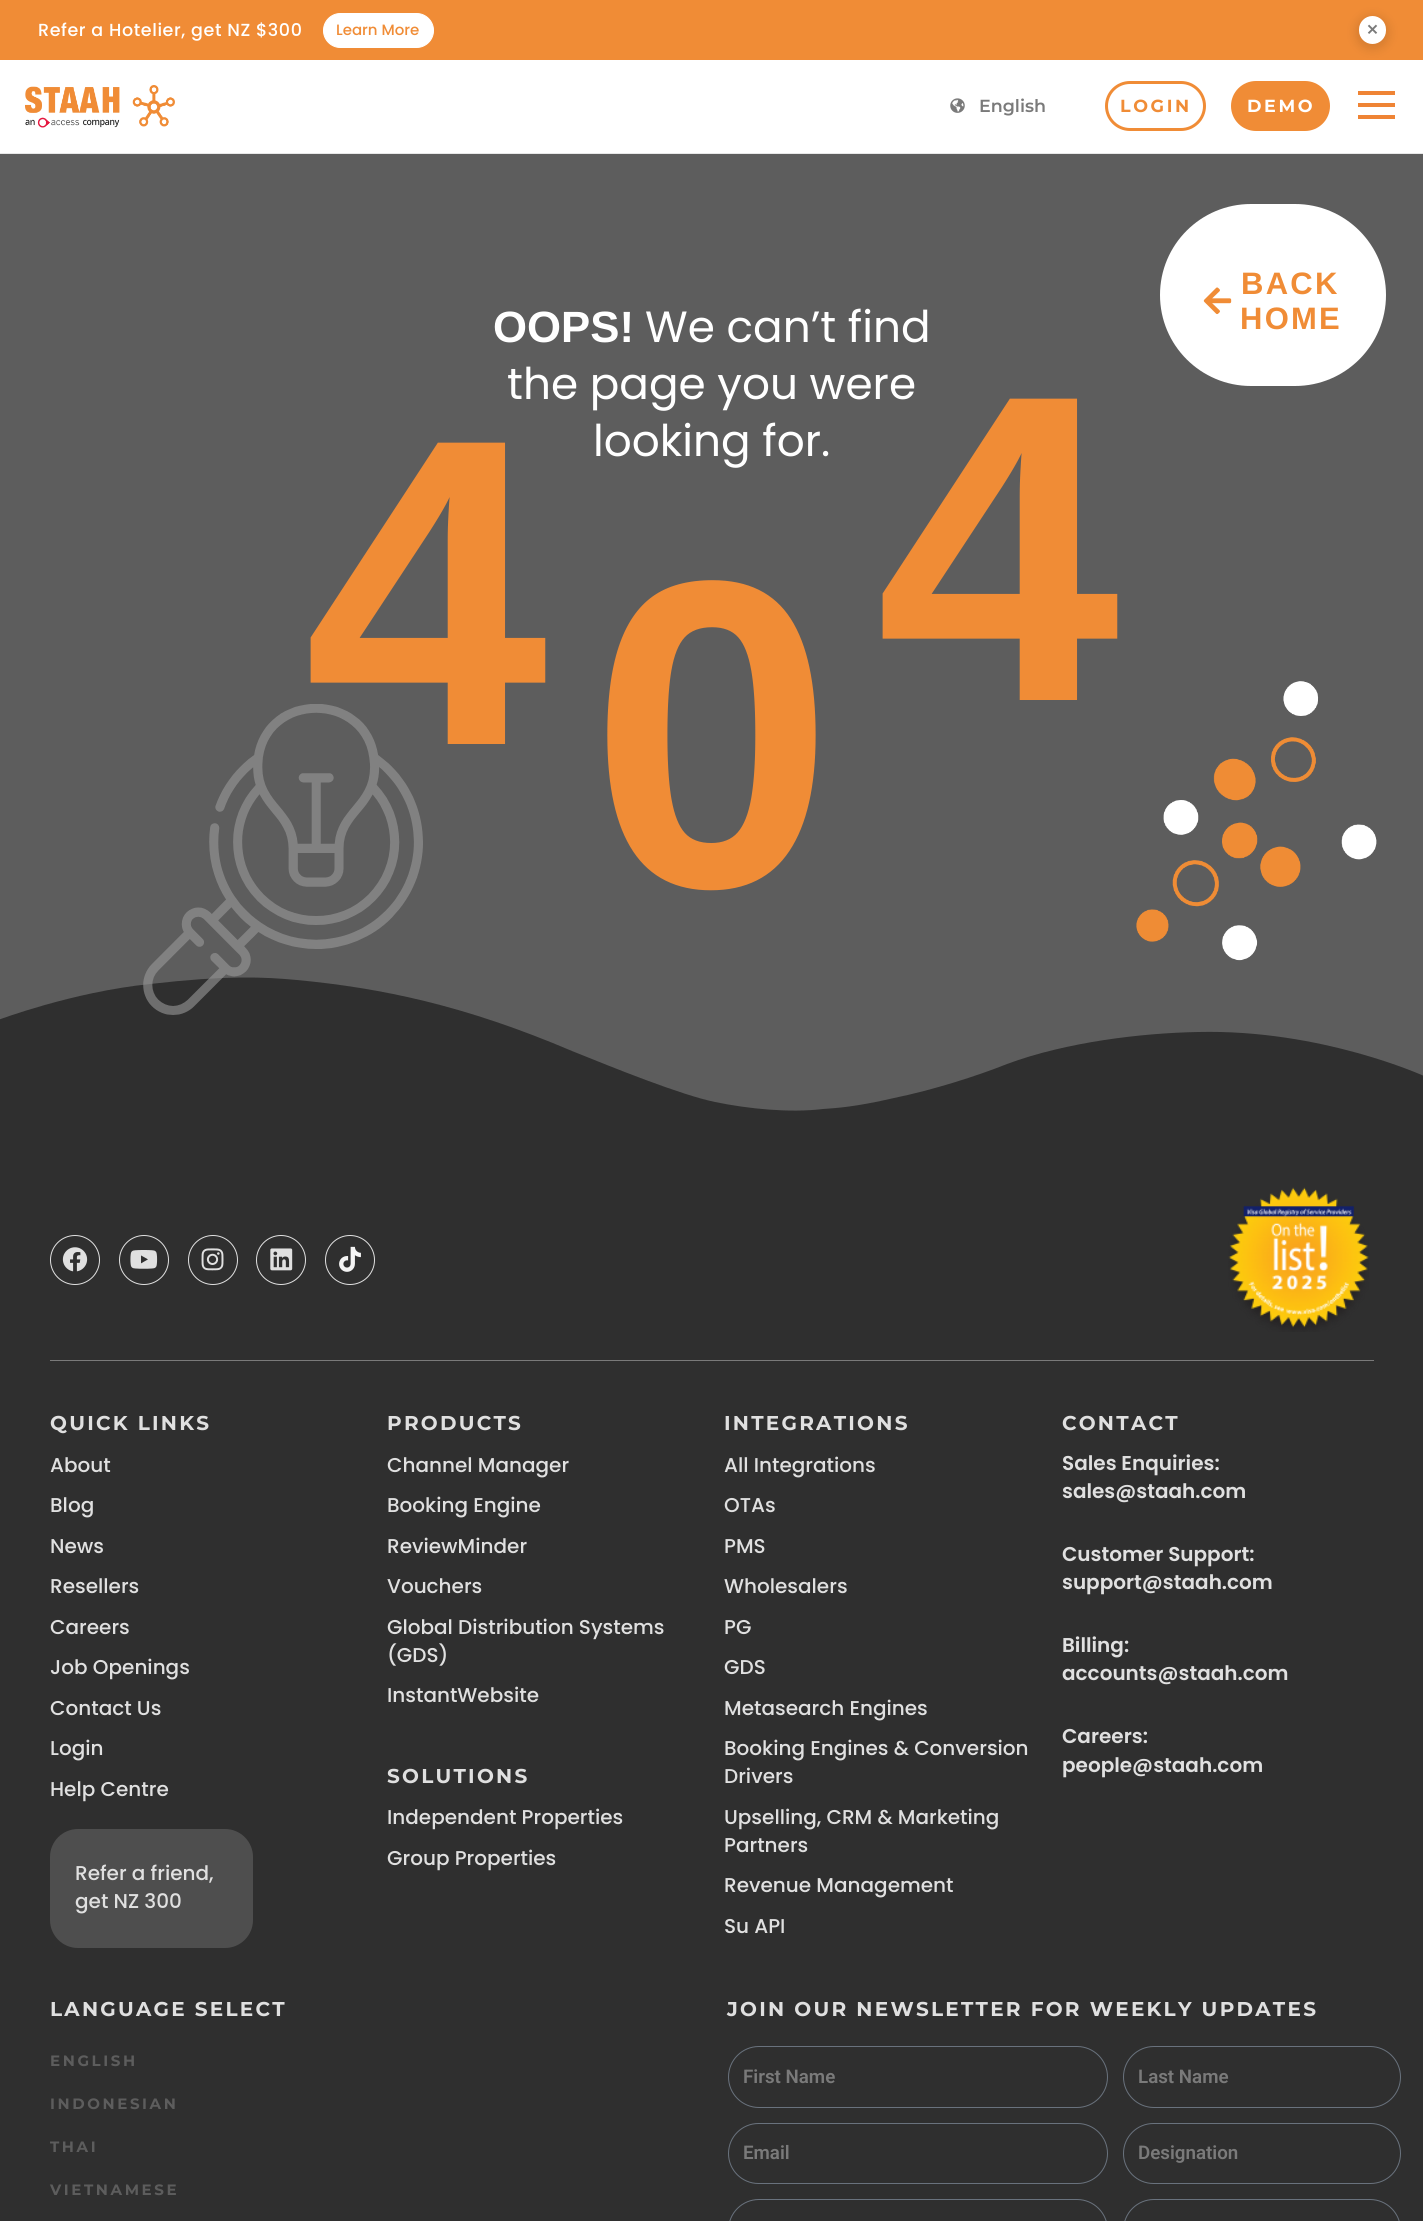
import math
import cairo

surface = cairo.ImageSurface(cairo.FORMAT_RGB24, 1423, 2221)
ctx = cairo.Context(surface)
options = cairo.FontOptions()
options.set_hint_metrics(cairo.HINT_METRICS_OFF)
options.set_hint_style(cairo.HINT_STYLE_NONE)
ctx.set_font_options(options)
ctx.set_miter_limit(4)


def set_color(code):
    ctx.set_source_rgb(*(v / 255 for v in bytes.fromhex(code[-6:])))


def draw_text(x, y, s, family, size, color, bold=False, italic=False):
    ctx.select_font_face(family, cairo.FONT_SLANT_ITALIC if italic else cairo.FONT_SLANT_NORMAL, cairo.FONT_WEIGHT_BOLD if bold else cairo.FONT_WEIGHT_NORMAL)
    ctx.set_font_size(size)
    set_color(color)
    ctx.move_to(x, y)
    ctx.show_text(s)


def draw_spaced(x, y, s, letter, word):
    ctx.move_to(x, y)
    for ch in s:
        ctx.show_text(ch)
        ctx.rel_move_to(letter + word * (ch == ' '), 0)


def fill_rect(x, y, w, h, color):
    set_color(color)
    ctx.rectangle(x, y, w, h)
    ctx.fill()


def rounded_rect(x, y, w, h, r):
    ctx.new_sub_path()
    for i, (u, v) in enumerate([(x + w - r, y + h - r), (x + r, y + h - r), (x + r, y + r), (x + w - r, y + r)]):
        ctx.arc(u, v, r, i * math.pi / 2, (i + 1) * math.pi / 2)
    ctx.close_path()


def draw_shadow(x, y, w, h, r, blur, alpha):
    ctx.push_group_with_content(cairo.CONTENT_ALPHA)
    ctx.set_operator(cairo.OPERATOR_SOURCE)
    for i in range(15, -16, -2):
        e = blur * i / 6
        if min(w, h) + 2 * e > 0:
            ctx.set_source_rgba(0, 0, 0, alpha * math.erfc((i - 1) / 8.5) / 2)
            rounded_rect(x - e, y - e, w + 2 * e, h + 2 * e, max(0, min(r + e + blur * .6, min(w, h) / 2 + e)))
            ctx.fill()
    ctx.mask(ctx.pop_group())


def draw_image(path, x, y, w, h):
    ctx.save()
    ctx.set_source_surface(cairo.ImageSurface.create_from_png(path), x, y)
    ctx.rectangle(x, y, w, h)
    ctx.fill()
    ctx.restore()


set_color("#ffffff")
ctx.paint()
fill_rect(0, 0, 1423, 60, "#f08c36")
ctx.select_font_face("Poppins Medium")
ctx.set_font_size(17.5)
set_color("#ffffff")
draw_spaced(38, 36, "Refer a Hotelier, get NZ $300", 0.6, 0)
rounded_rect(323.5, 13.5, 110, 34, 17)
ctx.fill_preserve()
ctx.set_line_width(1)
ctx.stroke()
draw_text(336, 35, "Learn More", "Poppins Medium", 15, "#f08c36")
set_color("#000000")
draw_shadow(1355, 15, 35, 35, 17.5, 4.5, 0.1)
set_color("#ffffff")
rounded_rect(1359, 16, 27, 28, 13.5)
ctx.fill()
draw_text(1366, 35, "✕", "DejaVu Sans", 15, "#7a7a7a", bold=True)
fill_rect(0, 153, 1423, 1, "#e7e7e7")
draw_image("assets/img1.png", 25, 85, 150, 43)
draw_image("assets/img2.png", 950, 98, 15, 15)
draw_text(979, 112, "English", "Montserrat SemiBold", 17.5, "#7a7a7a")
rounded_rect(1106.5, 82.5, 98, 47, 23.5)
set_color("#f08c36")
ctx.set_line_width(3)
ctx.stroke()
ctx.select_font_face("Montserrat", cairo.FONT_SLANT_NORMAL, cairo.FONT_WEIGHT_BOLD)
draw_spaced(1120, 112, "LOGIN", 2.6, 0)
rounded_rect(1232.5, 82.5, 96, 47, 23.5)
ctx.fill_preserve()
ctx.stroke()
set_color("#ffffff")
draw_spaced(1247, 112, "DEMO", 2.6, 0)
fill_rect(1358, 91, 37, 4, "#ef8435")
fill_rect(1358, 103, 37, 4, "#ef8435")
fill_rect(1358, 115, 37, 4, "#ef8435")
fill_rect(0, 154, 1423, 957, "#5d5d5d")
set_color("#ffffff")
rounded_rect(1160, 204, 226, 182, 91)
ctx.fill()
draw_image("assets/img3.png", 1203, 287, 29, 28)
ctx.select_font_face("Liberation Sans", cairo.FONT_SLANT_NORMAL, cairo.FONT_WEIGHT_BOLD)
ctx.set_font_size(31)
set_color("#f08c36")
draw_spaced(1241, 294, "BACK", 2.25, 0)
draw_spaced(1240, 329, "HOME", 2.25, 0)
draw_text(493, 342, "OOPS!", "Liberation Sans", 43.75, "#ffffff", bold=True)
draw_text(645, 342, "We can’t find", "Poppins", 43.75, "#ffffff")
draw_text(507, 399, "the page you were", "Poppins", 43.75, "#ffffff")
draw_text(593, 456, "looking for.", "Poppins", 43.75, "#ffffff")
draw_image("assets/img4.png", 1136, 681, 241, 280)
set_color("#2f2f2f")
ctx.new_path()
ctx.move_to(823, 1109)
ctx.curve_to(790, 1113, 749, 1109, 715, 1102)
ctx.curve_to(681, 1095, 614, 1068, 572, 1051)
ctx.curve_to(464, 1005, 381, 988, 297, 980)
ctx.curve_to(264, 977, 228, 975, 150, 984)
ctx.curve_to(72, 992, -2, 1020, -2, 1020)
ctx.line_to(-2, 1119)
ctx.line_to(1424, 1119)
ctx.line_to(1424, 1076)
ctx.curve_to(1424, 1076, 1321, 1029, 1198, 1032)
ctx.curve_to(1142, 1033, 1066, 1042, 1007, 1064)
ctx.curve_to(977, 1076, 933, 1090, 894, 1098)
ctx.curve_to(855, 1107, 837, 1108, 823, 1109)
ctx.close_path()
ctx.fill()
draw_image("assets/img5.png", 143, 704, 280, 311)
draw_text(304, 744, "4", "Liberation Sans", 438, "#f08c36", bold=True)
draw_text(590, 886, "0", "Liberation Sans", 438, "#f08c36", bold=True)
draw_text(876, 700, "4", "Liberation Sans", 438, "#f08c36", bold=True)
fill_rect(0, 1119, 1423, 1102, "#2f2f2f")
fill_rect(50, 1360, 1324, 1, "#7a7a7a")
ctx.new_path()
ctx.arc(75, 1260, 24.5, 0, 2 * math.pi)
set_color("#e0e0e0")
ctx.set_line_width(1)
ctx.stroke()
draw_image("assets/img6.png", 62, 1247, 26, 25)
ctx.arc(144, 1260, 24.5, 0, 2 * math.pi)
ctx.stroke()
draw_image("assets/img7.png", 130, 1250, 28, 19)
ctx.arc(213, 1260, 24.5, 0, 2 * math.pi)
ctx.stroke()
draw_image("assets/img8.png", 201, 1248, 23, 23)
ctx.arc(281, 1260, 24.5, 0, 2 * math.pi)
ctx.stroke()
draw_image("assets/img9.png", 270, 1248, 23, 23)
ctx.arc(350, 1260, 24.5, 0, 2 * math.pi)
ctx.stroke()
draw_image("assets/img10.png", 339, 1246, 22, 26)
draw_image("assets/img11.png", 1228, 1187, 141, 145)
ctx.select_font_face("Montserrat", cairo.FONT_SLANT_NORMAL, cairo.FONT_WEIGHT_BOLD)
ctx.set_font_size(20)
draw_spaced(50, 1430, "QUICK LINKS", 2.25, 0)
draw_text(50, 1472, "About", "Poppins Medium", 20, "#e0e0e0")
draw_text(50, 1512, "Blog", "Poppins Medium", 20, "#e0e0e0")
draw_text(50, 1553, "News", "Poppins Medium", 20, "#e0e0e0")
draw_text(50, 1593, "Resellers", "Poppins Medium", 20, "#e0e0e0")
draw_text(50, 1634, "Careers", "Poppins Medium", 20, "#e0e0e0")
draw_text(50, 1674, "Job Openings", "Poppins Medium", 20, "#e0e0e0")
draw_text(50, 1715, "Contact Us", "Poppins Medium", 20, "#e0e0e0")
draw_text(50, 1755, "Login", "Poppins Medium", 20, "#e0e0e0")
draw_text(50, 1796, "Help Centre", "Poppins Medium", 20, "#e0e0e0")
set_color("#4e4e4e")
rounded_rect(50, 1829, 203, 119, 28)
ctx.fill()
draw_text(75, 1880, "Refer a friend,", "Poppins Medium", 20, "#e0e0e0")
draw_text(75, 1908, "get NZ 300", "Poppins Medium", 20, "#e0e0e0")
ctx.select_font_face("Montserrat", cairo.FONT_SLANT_NORMAL, cairo.FONT_WEIGHT_BOLD)
draw_spaced(387, 1430, "PRODUCTS", 2.25, 0)
draw_text(387, 1472, "Channel Manager", "Poppins Medium", 20, "#e0e0e0")
draw_text(387, 1512, "Booking Engine", "Poppins Medium", 20, "#e0e0e0")
draw_text(387, 1553, "ReviewMinder", "Poppins Medium", 20, "#e0e0e0")
draw_text(387, 1593, "Vouchers", "Poppins Medium", 20, "#e0e0e0")
draw_text(387, 1634, "Global Distribution Systems", "Poppins Medium", 20, "#e0e0e0")
draw_text(387, 1662, "(GDS)", "Poppins Medium", 20, "#e0e0e0")
draw_text(387, 1702, "InstantWebsite", "Poppins Medium", 20, "#e0e0e0")
ctx.select_font_face("Montserrat", cairo.FONT_SLANT_NORMAL, cairo.FONT_WEIGHT_BOLD)
draw_spaced(387, 1783, "SOLUTIONS", 2.25, 0)
draw_text(387, 1824, "Independent Properties", "Poppins Medium", 20, "#e0e0e0")
draw_text(387, 1865, "Group Properties", "Poppins Medium", 20, "#e0e0e0")
ctx.select_font_face("Montserrat", cairo.FONT_SLANT_NORMAL, cairo.FONT_WEIGHT_BOLD)
draw_spaced(724, 1430, "INTEGRATIONS", 2.25, 0)
draw_text(724, 1472, "All Integrations", "Poppins Medium", 20, "#e0e0e0")
draw_text(724, 1512, "OTAs", "Poppins Medium", 20, "#e0e0e0")
draw_text(724, 1553, "PMS", "Poppins Medium", 20, "#e0e0e0")
draw_text(724, 1593, "Wholesalers", "Poppins Medium", 20, "#e0e0e0")
draw_text(724, 1634, "PG", "Poppins Medium", 20, "#e0e0e0")
draw_text(724, 1674, "GDS", "Poppins Medium", 20, "#e0e0e0")
draw_text(724, 1715, "Metasearch Engines", "Poppins Medium", 20, "#e0e0e0")
draw_text(724, 1755, "Booking Engines & Conversion", "Poppins Medium", 20, "#e0e0e0")
draw_text(724, 1783, "Drivers", "Poppins Medium", 20, "#e0e0e0")
draw_text(724, 1824, "Upselling, CRM & Marketing", "Poppins Medium", 20, "#e0e0e0")
draw_text(724, 1852, "Partners", "Poppins Medium", 20, "#e0e0e0")
draw_text(724, 1892, "Revenue Management", "Poppins Medium", 20, "#e0e0e0")
draw_text(724, 1933, "Su API", "Poppins Medium", 20, "#e0e0e0")
ctx.select_font_face("Montserrat", cairo.FONT_SLANT_NORMAL, cairo.FONT_WEIGHT_BOLD)
draw_spaced(1062, 1430, "CONTACT", 2.25, 0)
draw_text(1062, 1470, "Sales Enquiries:", "Poppins SemiBold", 20, "#e0e0e0")
draw_text(1062, 1498, "sales@staah.com", "Poppins SemiBold", 20, "#e0e0e0")
draw_text(1062, 1561, "Customer Support:", "Poppins SemiBold", 20, "#e0e0e0")
draw_text(1062, 1589, "support@staah.com", "Poppins SemiBold", 20, "#e0e0e0")
draw_text(1062, 1652, "Billing:", "Poppins SemiBold", 20, "#e0e0e0")
draw_text(1062, 1680, "accounts@staah.com", "Poppins SemiBold", 20, "#e0e0e0")
draw_text(1062, 1743, "Careers:", "Poppins SemiBold", 20, "#e0e0e0")
draw_text(1062, 1772, "people@staah.com", "Poppins SemiBold", 20, "#e0e0e0")
ctx.select_font_face("Montserrat", cairo.FONT_SLANT_NORMAL, cairo.FONT_WEIGHT_BOLD)
draw_spaced(50, 2016, "LANGUAGE SELECT", 2.25, 0)
ctx.set_font_size(15)
set_color("#5d5d5d")
draw_spaced(50, 2066, "ENGLISH", 2.6, 0)
draw_spaced(50, 2109, "INDONESIAN", 2.6, 0)
draw_spaced(50, 2152, "THAI", 2.6, 0)
draw_spaced(50, 2195, "VIETNAMESE", 2.6, 0)
ctx.set_font_size(20)
set_color("#e0e0e0")
draw_spaced(727, 2016, "JOIN OUR NEWSLETTER FOR WEEKLY UPDATES", 2.25, 0)
rounded_rect(728.5, 2046.5, 379, 61, 30.5)
set_color("#69727d")
ctx.stroke()
draw_text(743, 2083, "First Name", "Roboto SemiBold", 18.75, "#7a7a7a")
rounded_rect(1123.5, 2046.5, 277, 61, 30.5)
set_color("#69727d")
ctx.stroke()
draw_text(1138, 2083, "Last Name", "Roboto SemiBold", 18.75, "#7a7a7a")
rounded_rect(728.5, 2123.5, 379, 60, 30)
set_color("#69727d")
ctx.stroke()
draw_text(743, 2159, "Email", "Roboto SemiBold", 18.75, "#7a7a7a")
rounded_rect(1123.5, 2123.5, 277, 60, 30)
set_color("#69727d")
ctx.stroke()
draw_text(1138, 2159, "Designation", "Roboto SemiBold", 18.75, "#7a7a7a")
rounded_rect(728.5, 2199.5, 379, 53, 30.5)
set_color("#69727d")
ctx.stroke()
rounded_rect(1123.5, 2199.5, 277, 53, 30.5)
ctx.stroke()
surface.write_to_png("output.png")
